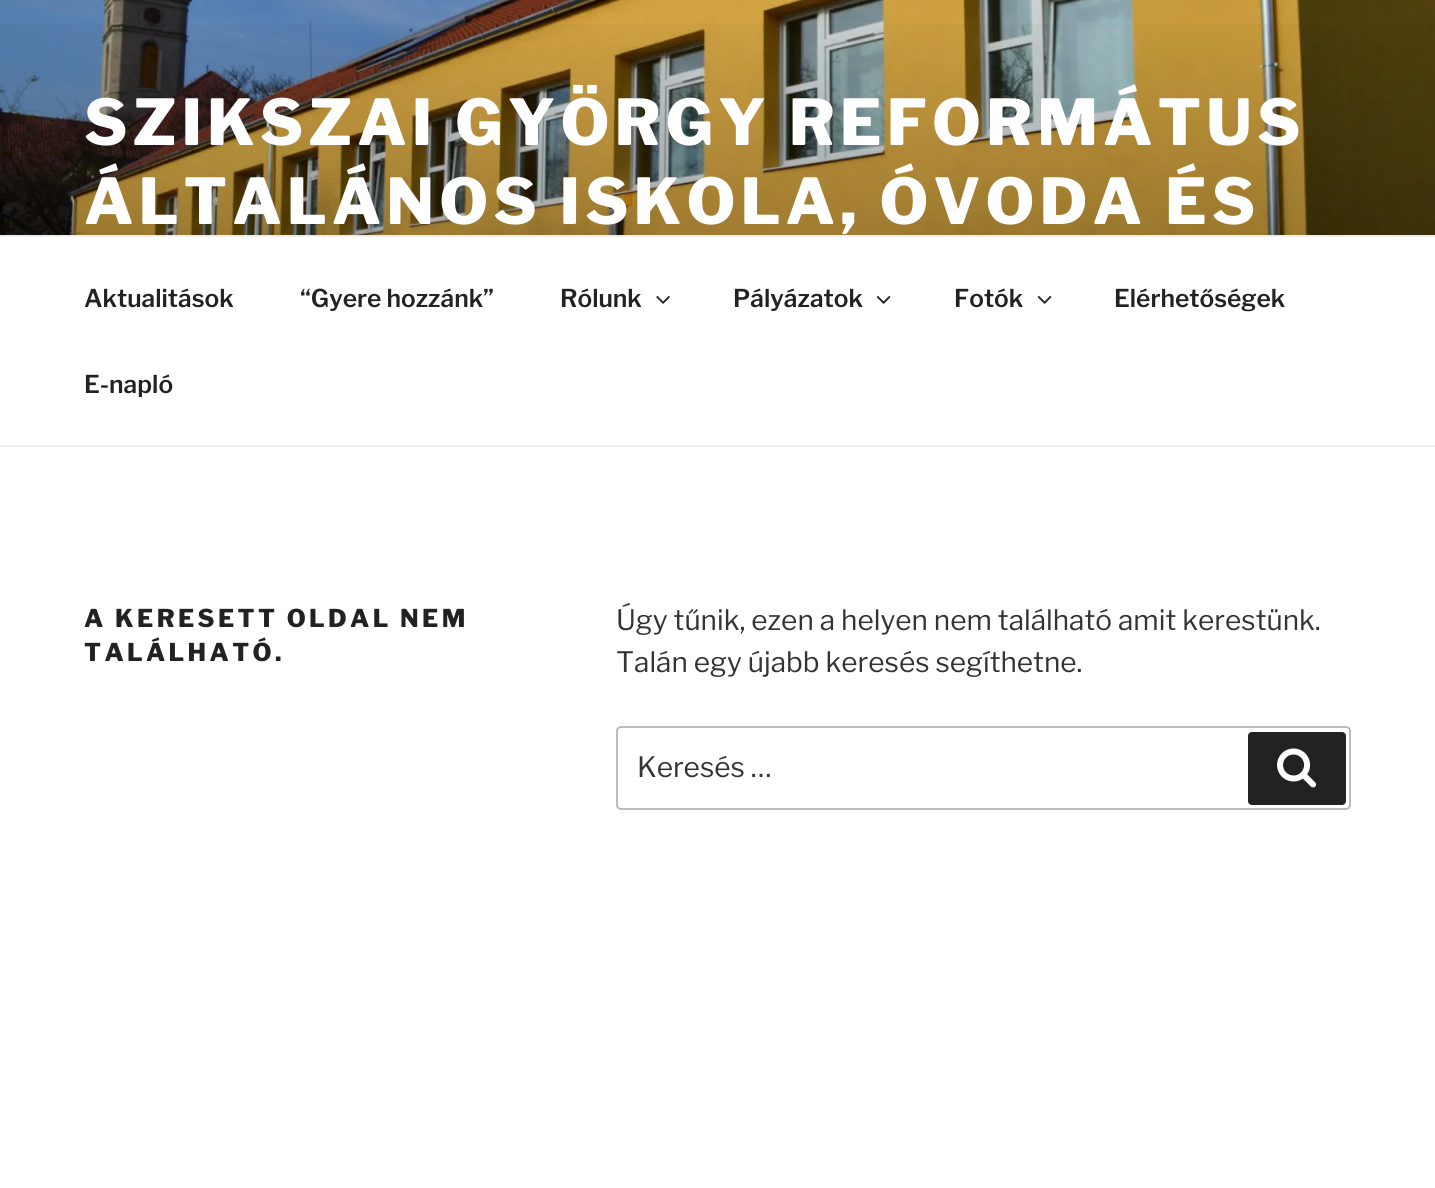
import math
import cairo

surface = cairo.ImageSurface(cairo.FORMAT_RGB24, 1435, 1188)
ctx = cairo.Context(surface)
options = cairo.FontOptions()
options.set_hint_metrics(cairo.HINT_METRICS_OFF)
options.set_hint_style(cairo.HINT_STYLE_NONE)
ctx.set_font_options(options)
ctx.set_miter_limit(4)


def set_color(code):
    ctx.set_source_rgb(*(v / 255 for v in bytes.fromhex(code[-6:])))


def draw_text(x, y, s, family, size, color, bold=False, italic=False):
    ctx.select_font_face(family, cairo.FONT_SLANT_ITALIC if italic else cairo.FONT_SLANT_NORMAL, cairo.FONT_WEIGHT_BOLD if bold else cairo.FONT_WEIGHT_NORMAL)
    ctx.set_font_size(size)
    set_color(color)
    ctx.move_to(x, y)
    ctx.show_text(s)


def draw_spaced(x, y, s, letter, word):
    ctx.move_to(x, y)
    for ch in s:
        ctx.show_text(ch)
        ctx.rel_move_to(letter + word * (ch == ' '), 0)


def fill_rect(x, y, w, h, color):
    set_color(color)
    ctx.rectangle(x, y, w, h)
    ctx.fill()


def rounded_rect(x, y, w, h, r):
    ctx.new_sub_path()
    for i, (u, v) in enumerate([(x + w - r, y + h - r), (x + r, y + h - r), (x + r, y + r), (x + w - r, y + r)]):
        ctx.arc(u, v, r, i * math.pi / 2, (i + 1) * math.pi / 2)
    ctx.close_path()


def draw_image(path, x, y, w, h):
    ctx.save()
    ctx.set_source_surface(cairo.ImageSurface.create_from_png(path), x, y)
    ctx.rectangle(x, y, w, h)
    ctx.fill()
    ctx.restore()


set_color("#ffffff")
ctx.paint()
draw_image("assets/img1.png", 0, 0, 1435, 235)
gradient = cairo.LinearGradient(718, 0, 718, 446)
gradient.add_color_stop_rgba(0, 0, 0, 0, 0)
gradient.add_color_stop_rgba(0.75, 0, 0, 0, 0.3)
gradient.add_color_stop_rgba(1, 0, 0, 0, 0.3)
ctx.set_source(gradient)
ctx.rectangle(0, 24, 1435, 211)
ctx.fill()
ctx.select_font_face("Libre Franklin Thin")
ctx.set_font_size(63)
set_color("#ffffff")
draw_spaced(84, 145, "SZIKSZAI GYÖRGY REFORMÁTUS", 5.05, 0)
draw_spaced(84, 224, "ÁLTALÁNOS ISKOLA, ÓVODA ÉS", 5.05, 0)
fill_rect(0, 235, 1435, 2, "#eeeeee")
fill_rect(0, 445, 1435, 2, "#eeeeee")
draw_text(84, 307, "Aktualitások", "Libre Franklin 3 Thin", 24.5, "#222222")
draw_text(300, 307, "“Gyere hozzánk”", "Libre Franklin 3 Thin", 24.5, "#222222")
draw_text(560, 307, "Rólunk", "Libre Franklin 3 Thin", 24.5, "#222222")
draw_image("assets/img2.png", 656, 296, 14, 8)
draw_text(733, 307, "Pályázatok", "Libre Franklin 3 Thin", 24.5, "#222222")
draw_image("assets/img3.png", 876, 296, 15, 8)
draw_text(954, 307, "Fotók", "Libre Franklin 3 Thin", 24.5, "#222222")
draw_image("assets/img3.png", 1037, 296, 15, 8)
draw_text(1114, 307, "Elérhetőségek", "Libre Franklin 3 Thin", 24.5, "#222222")
draw_text(84, 393, "E-napló", "Libre Franklin 3 Thin", 24.5, "#222222")
ctx.select_font_face("Libre Franklin Thin")
draw_spaced(84, 627, "A KERESETT OLDAL NEM", 3.4, 0)
draw_spaced(84, 661, "TALÁLHATÓ.", 3.4, 0)
draw_text(616, 630, "Úgy tűnik, ezen a helyen nem található amit kerestünk.", "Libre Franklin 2 Thin", 28, "#333333")
draw_text(616, 672, "Talán egy újabb keresés segíthetne.", "Libre Franklin 2 Thin", 28, "#333333")
rounded_rect(617, 727, 733, 82, 4)
set_color("#bbbbbb")
ctx.stroke()
draw_text(637, 777, "Keresés …", "Libre Franklin 2 Thin", 28, "#333333")
set_color("#222222")
rounded_rect(1248, 732, 98, 73, 4)
ctx.fill()
draw_image("assets/img4.png", 1277, 748, 39, 40)
surface.write_to_png("output.png")
